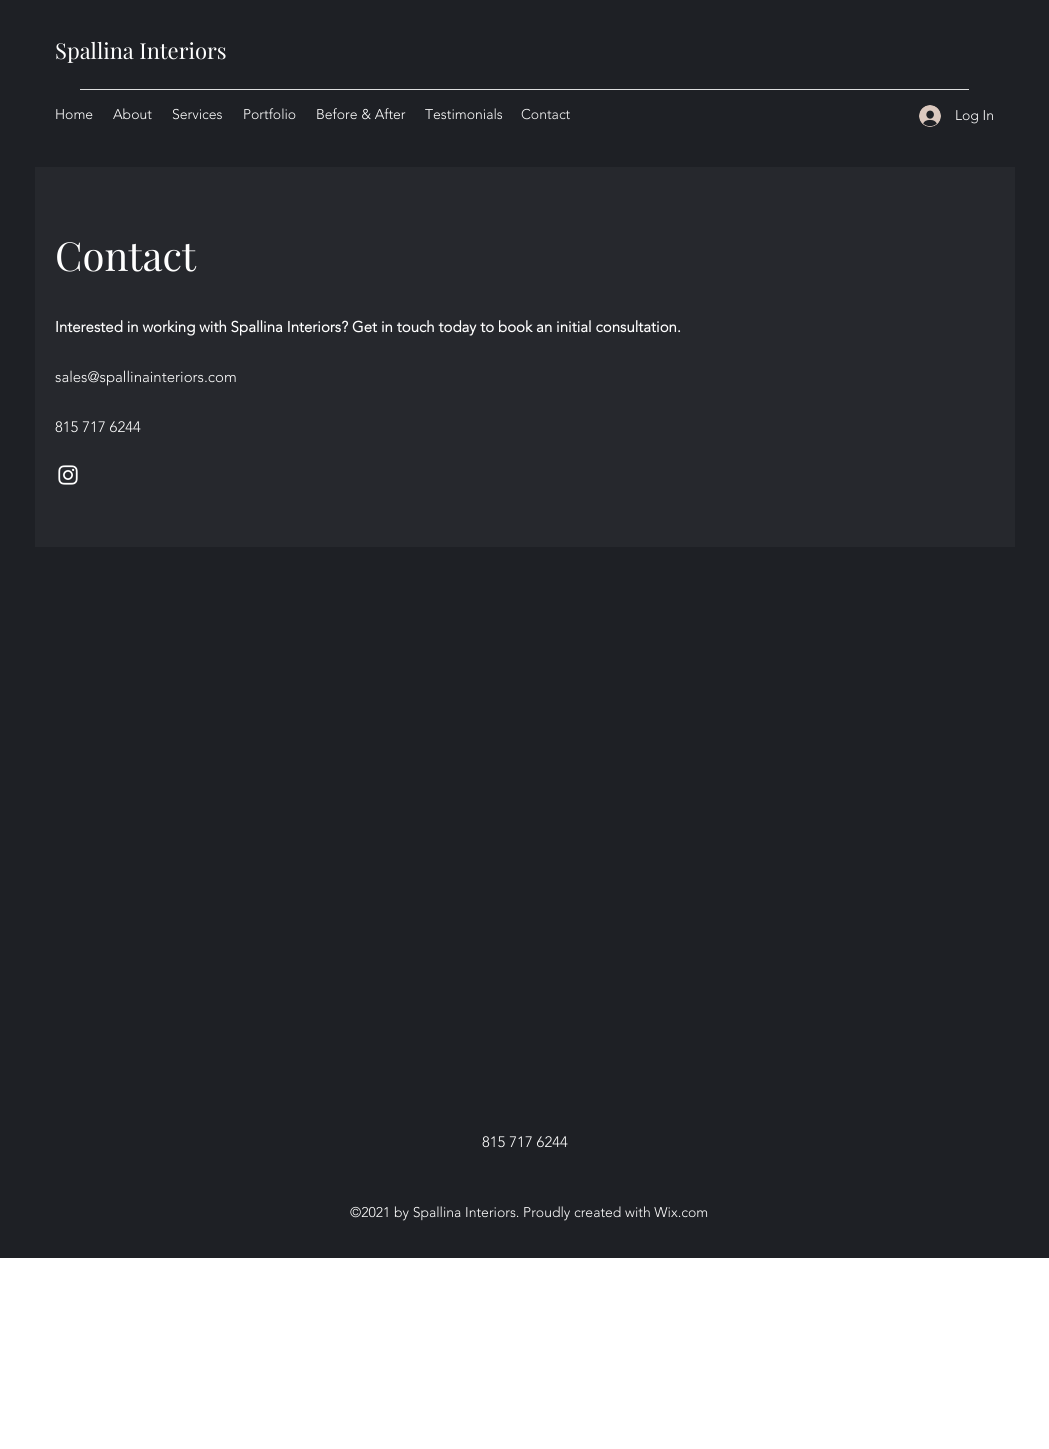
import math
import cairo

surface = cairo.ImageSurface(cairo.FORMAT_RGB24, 1049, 1449)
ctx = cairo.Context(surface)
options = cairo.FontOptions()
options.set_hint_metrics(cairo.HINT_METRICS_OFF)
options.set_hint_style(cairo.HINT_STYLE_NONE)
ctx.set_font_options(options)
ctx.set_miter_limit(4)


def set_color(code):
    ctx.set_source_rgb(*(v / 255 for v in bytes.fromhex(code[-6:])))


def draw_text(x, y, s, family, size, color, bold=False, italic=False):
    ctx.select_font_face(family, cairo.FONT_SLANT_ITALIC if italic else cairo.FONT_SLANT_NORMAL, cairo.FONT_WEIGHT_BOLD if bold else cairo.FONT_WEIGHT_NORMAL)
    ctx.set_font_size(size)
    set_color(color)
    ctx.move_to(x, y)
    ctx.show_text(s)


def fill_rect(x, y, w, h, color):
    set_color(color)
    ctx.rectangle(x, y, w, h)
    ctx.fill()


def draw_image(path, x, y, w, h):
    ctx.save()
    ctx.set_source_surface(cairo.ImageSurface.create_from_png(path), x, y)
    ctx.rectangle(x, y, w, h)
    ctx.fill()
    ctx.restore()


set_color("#ffffff")
ctx.paint()
fill_rect(0, 0, 1049, 1258, "#1e2025")
draw_text(55, 59, "Spallina Interiors", "Playfair Display", 22, "#ffffff")
fill_rect(80, 89, 889, 1, "#dddede")
draw_text(55, 119, "Home", "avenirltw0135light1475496 Light", 14, "#ffffff")
draw_text(113, 119, "About", "avenirltw0135light1475496 Light", 14, "#ffffff")
draw_text(172, 119, "Services", "avenirltw0135light1475496 Light", 14, "#ffffff")
draw_text(243, 119, "Portfolio", "avenirltw0135light1475496 Light", 14, "#ffffff")
draw_text(316, 119, "Before & After", "avenirltw0135light1475496 Light", 14, "#ffffff")
draw_text(425, 119, "Testimonials", "avenirltw0135light1475496 Light", 14, "#ffffff")
draw_text(521, 119, "Contact", "avenirltw0135light1475496 Light", 14, "#f7f7f7")
draw_image("assets/img1.png", 919, 105, 22, 22)
draw_text(955, 120, "Log In", "avenirltw0135light1475496 Light", 14, "#ffffff")
fill_rect(35, 167, 980, 380, "#26282d")
draw_text(55, 271, "Contact", "Playfair Display", 40, "#ffffff")
draw_text(55, 332, "Interested in working with Spallina Interiors? Get in touch today to book an initial consultation.", "avenirltw0135light1475496", 15, "#ffffff", bold=True)
draw_text(55, 382, "sales@spallinainteriors.com", "avenirltw0135light1475496 Light", 15, "#ffffff")
draw_text(55, 432, "815 717 6244", "avenirltw0135light1475496 Light", 15, "#ffffff")
draw_image("assets/img2.png", 58, 465, 20, 20)
draw_text(482, 1147, "815 717 6244", "avenirltw0135light1475496 Light", 15, "#ffffff")
draw_text(350, 1217, "©2021 by Spallina Interiors. Proudly created with Wix.com", "avenirltw0135light1475496 Light", 14, "#ffffff")
surface.write_to_png("output.png")
